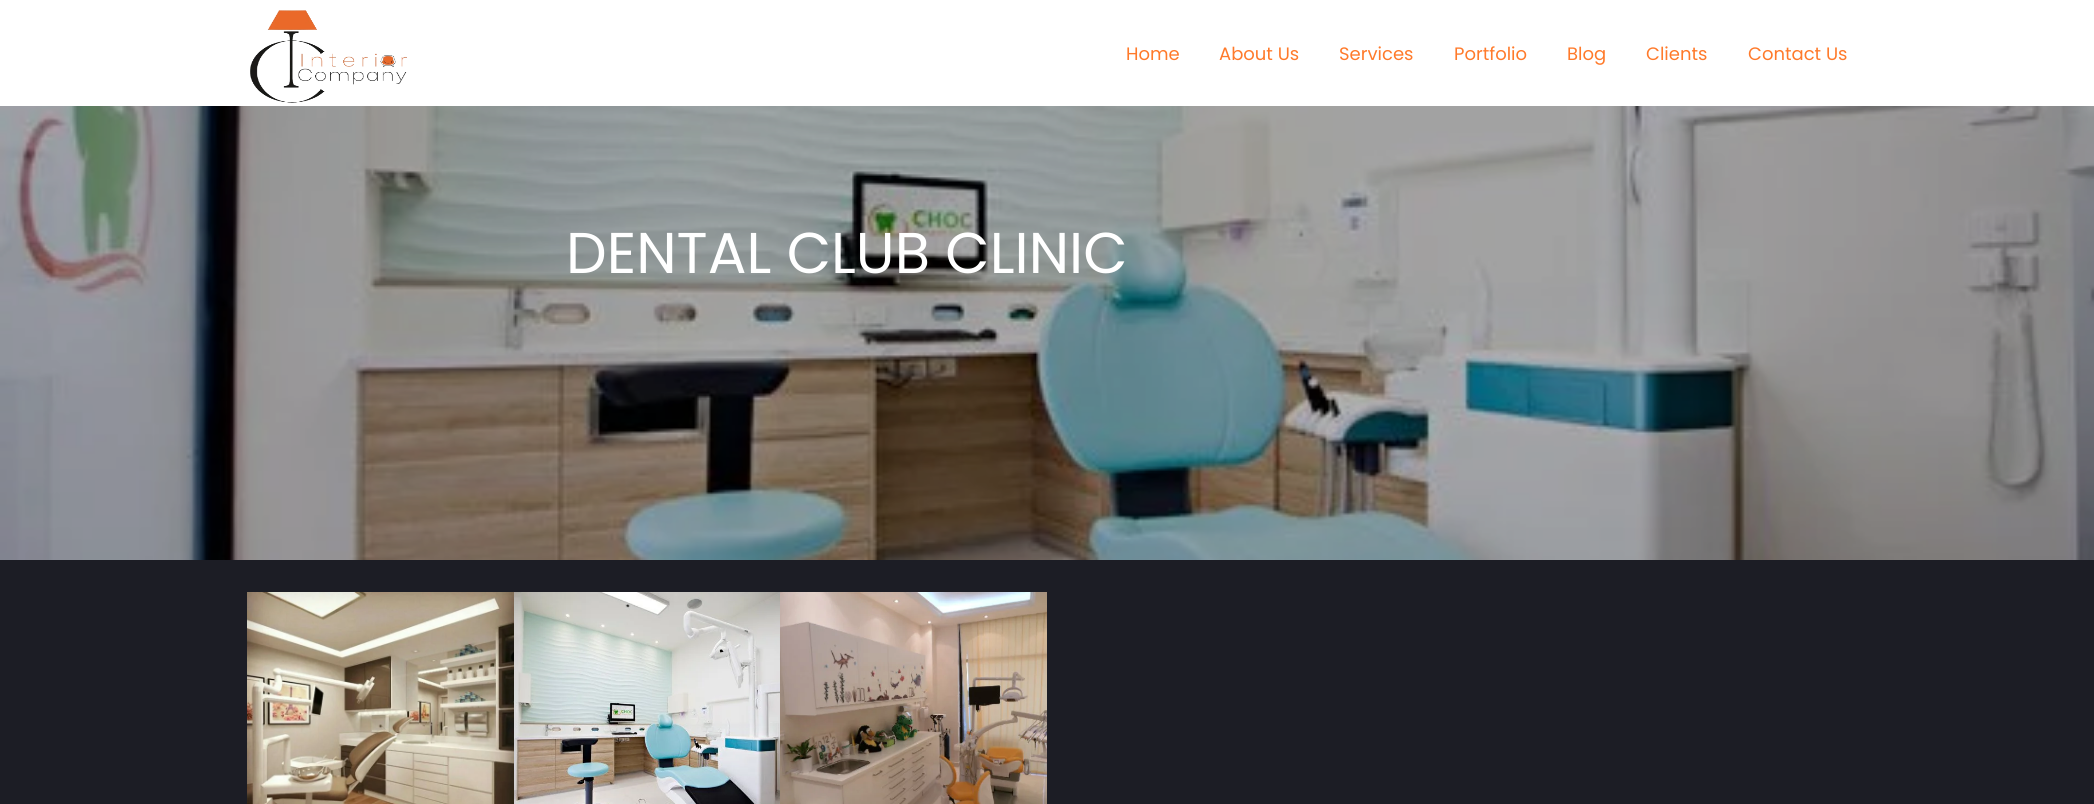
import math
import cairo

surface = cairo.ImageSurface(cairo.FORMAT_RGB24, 2094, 804)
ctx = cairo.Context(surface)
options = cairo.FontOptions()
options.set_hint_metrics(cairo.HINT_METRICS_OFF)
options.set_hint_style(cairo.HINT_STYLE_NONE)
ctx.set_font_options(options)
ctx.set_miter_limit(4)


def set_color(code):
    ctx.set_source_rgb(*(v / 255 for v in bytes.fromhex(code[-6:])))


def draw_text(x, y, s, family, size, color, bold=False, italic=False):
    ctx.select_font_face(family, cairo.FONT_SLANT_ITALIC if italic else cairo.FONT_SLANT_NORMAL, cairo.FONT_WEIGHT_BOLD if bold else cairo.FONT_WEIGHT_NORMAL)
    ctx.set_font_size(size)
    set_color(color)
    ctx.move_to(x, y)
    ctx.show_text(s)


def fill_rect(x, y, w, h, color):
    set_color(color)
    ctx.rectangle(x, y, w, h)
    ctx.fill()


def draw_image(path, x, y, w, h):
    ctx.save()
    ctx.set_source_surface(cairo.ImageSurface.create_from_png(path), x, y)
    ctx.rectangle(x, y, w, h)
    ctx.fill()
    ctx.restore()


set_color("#1c1d25")
ctx.paint()
fill_rect(0, 0, 2094, 106, "#ffffff")
draw_image("assets/img1.png", 250, 10, 157, 93)
draw_text(1126, 60, "Home", "Poppins", 18, "#ff7a2b")
draw_text(1219, 60, "About Us", "Poppins", 18, "#ff7a2b")
draw_text(1339, 60, "Services", "Poppins", 18, "#ff7a2b")
draw_text(1454, 60, "Portfolio", "Poppins", 18, "#ff7a2b")
draw_text(1567, 60, "Blog", "Poppins", 18, "#ff7a2b")
draw_text(1646, 60, "Clients", "Poppins", 18, "#ff7a2b")
draw_text(1748, 60, "Contact Us", "Poppins", 18, "#ff7a2b")
draw_image("assets/img2.png", 0, 106, 2094, 454)
draw_text(566, 273, "DENTAL CLUB CLINIC", "Poppins", 57.5, "#ffffff")
draw_image("assets/img3.png", 247, 592, 267, 212)
draw_image("assets/img4.png", 514, 592, 266, 212)
draw_image("assets/img5.png", 780, 592, 267, 212)
surface.write_to_png("output.png")
